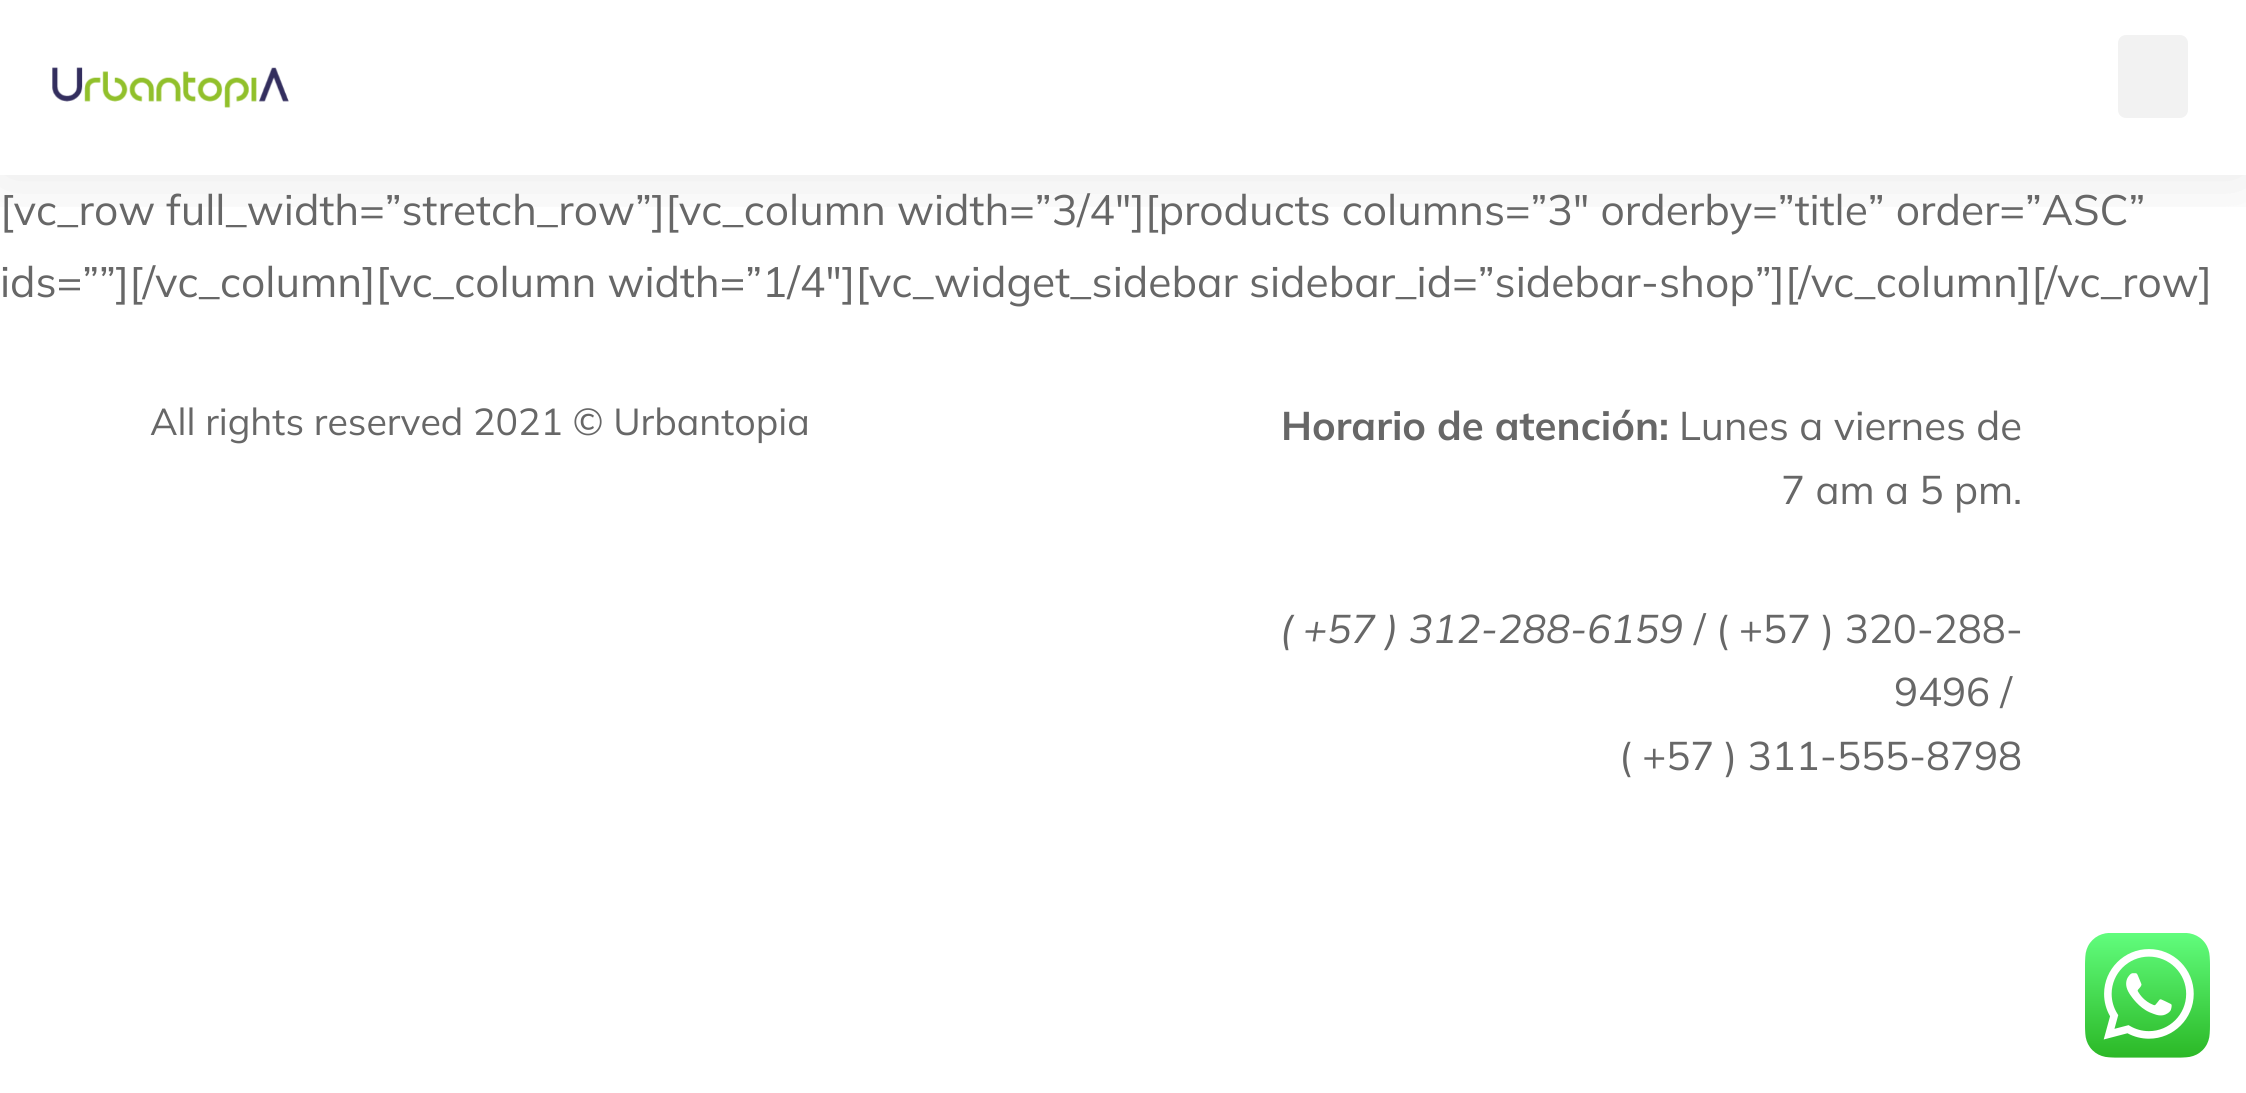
import math
import cairo

surface = cairo.ImageSurface(cairo.FORMAT_RGB24, 2246, 1093)
ctx = cairo.Context(surface)
options = cairo.FontOptions()
options.set_hint_metrics(cairo.HINT_METRICS_OFF)
options.set_hint_style(cairo.HINT_STYLE_NONE)
ctx.set_font_options(options)
ctx.set_miter_limit(4)


def set_color(code):
    ctx.set_source_rgb(*(v / 255 for v in bytes.fromhex(code[-6:])))


def draw_text(x, y, s, family, size, color, bold=False, italic=False):
    ctx.select_font_face(family, cairo.FONT_SLANT_ITALIC if italic else cairo.FONT_SLANT_NORMAL, cairo.FONT_WEIGHT_BOLD if bold else cairo.FONT_WEIGHT_NORMAL)
    ctx.set_font_size(size)
    set_color(color)
    ctx.move_to(x, y)
    ctx.show_text(s)


def rounded_rect(x, y, w, h, r):
    ctx.new_sub_path()
    for i, (u, v) in enumerate([(x + w - r, y + h - r), (x + r, y + h - r), (x + r, y + r), (x + w - r, y + r)]):
        ctx.arc(u, v, r, i * math.pi / 2, (i + 1) * math.pi / 2)
    ctx.close_path()


def draw_shadow(x, y, w, h, r, blur, alpha):
    ctx.push_group_with_content(cairo.CONTENT_ALPHA)
    ctx.set_operator(cairo.OPERATOR_SOURCE)
    for i in range(15, -16, -2):
        e = blur * i / 6
        if min(w, h) + 2 * e > 0:
            ctx.set_source_rgba(0, 0, 0, alpha * math.erfc((i - 1) / 8.5) / 2)
            rounded_rect(x - e, y - e, w + 2 * e, h + 2 * e, max(0, min(r + e + blur * .6, min(w, h) / 2 + e)))
            ctx.fill()
    ctx.mask(ctx.pop_group())


def draw_image(path, x, y, w, h):
    ctx.save()
    ctx.set_source_surface(cairo.ImageSurface.create_from_png(path), x, y)
    ctx.rectangle(x, y, w, h)
    ctx.fill()
    ctx.restore()


set_color("#ffffff")
ctx.paint()
ctx.save()
ctx.rectangle(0, 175, 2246, 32)
ctx.clip()
set_color("#000000")
draw_shadow(0, 0, 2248, 175, 0, 37.5, 0.1)
ctx.restore()
draw_image("assets/img1.png", 52, 67, 237, 41)
set_color("#f2f2f2")
rounded_rect(2118, 35, 70, 83, 8)
ctx.fill()
draw_text(0, 225, "[vc_row full_width=”stretch_row”][vc_column width=”3/4″][products columns=”3″ orderby=”title” order=”ASC”", "Mulish", 42.5, "#676767")
draw_text(0, 297, "ids=””][/vc_column][vc_column width=”1/4″][vc_widget_sidebar sidebar_id=”sidebar-shop”][/vc_column][/vc_row]", "Mulish", 42.5, "#676767")
draw_text(150, 435, "All rights reserved 2021 © Urbantopia", "Mulish", 37.5, "#676767")
draw_text(1281, 440, "Horario de atención:", "Mulish", 40, "#676767", bold=True)
draw_text(1679, 440, "Lunes a viernes de", "Mulish", 40, "#676767")
draw_text(1781, 504, "7 am a 5 pm.", "Mulish", 40, "#676767")
draw_text(1280, 643, "( +57 ) 312-288-6159", "Mulish", 40, "#676767", italic=True)
draw_text(1694, 643, "/ ( +57 ) 320-288-", "Mulish", 40, "#676767")
draw_text(1894, 706, "9496 /", "Mulish", 40, "#676767")
draw_text(1619, 770, "( +57 ) 311-555-8798", "Mulish", 40, "#676767")
draw_image("assets/img2.png", 2085, 933, 125, 125)
surface.write_to_png("output.png")
